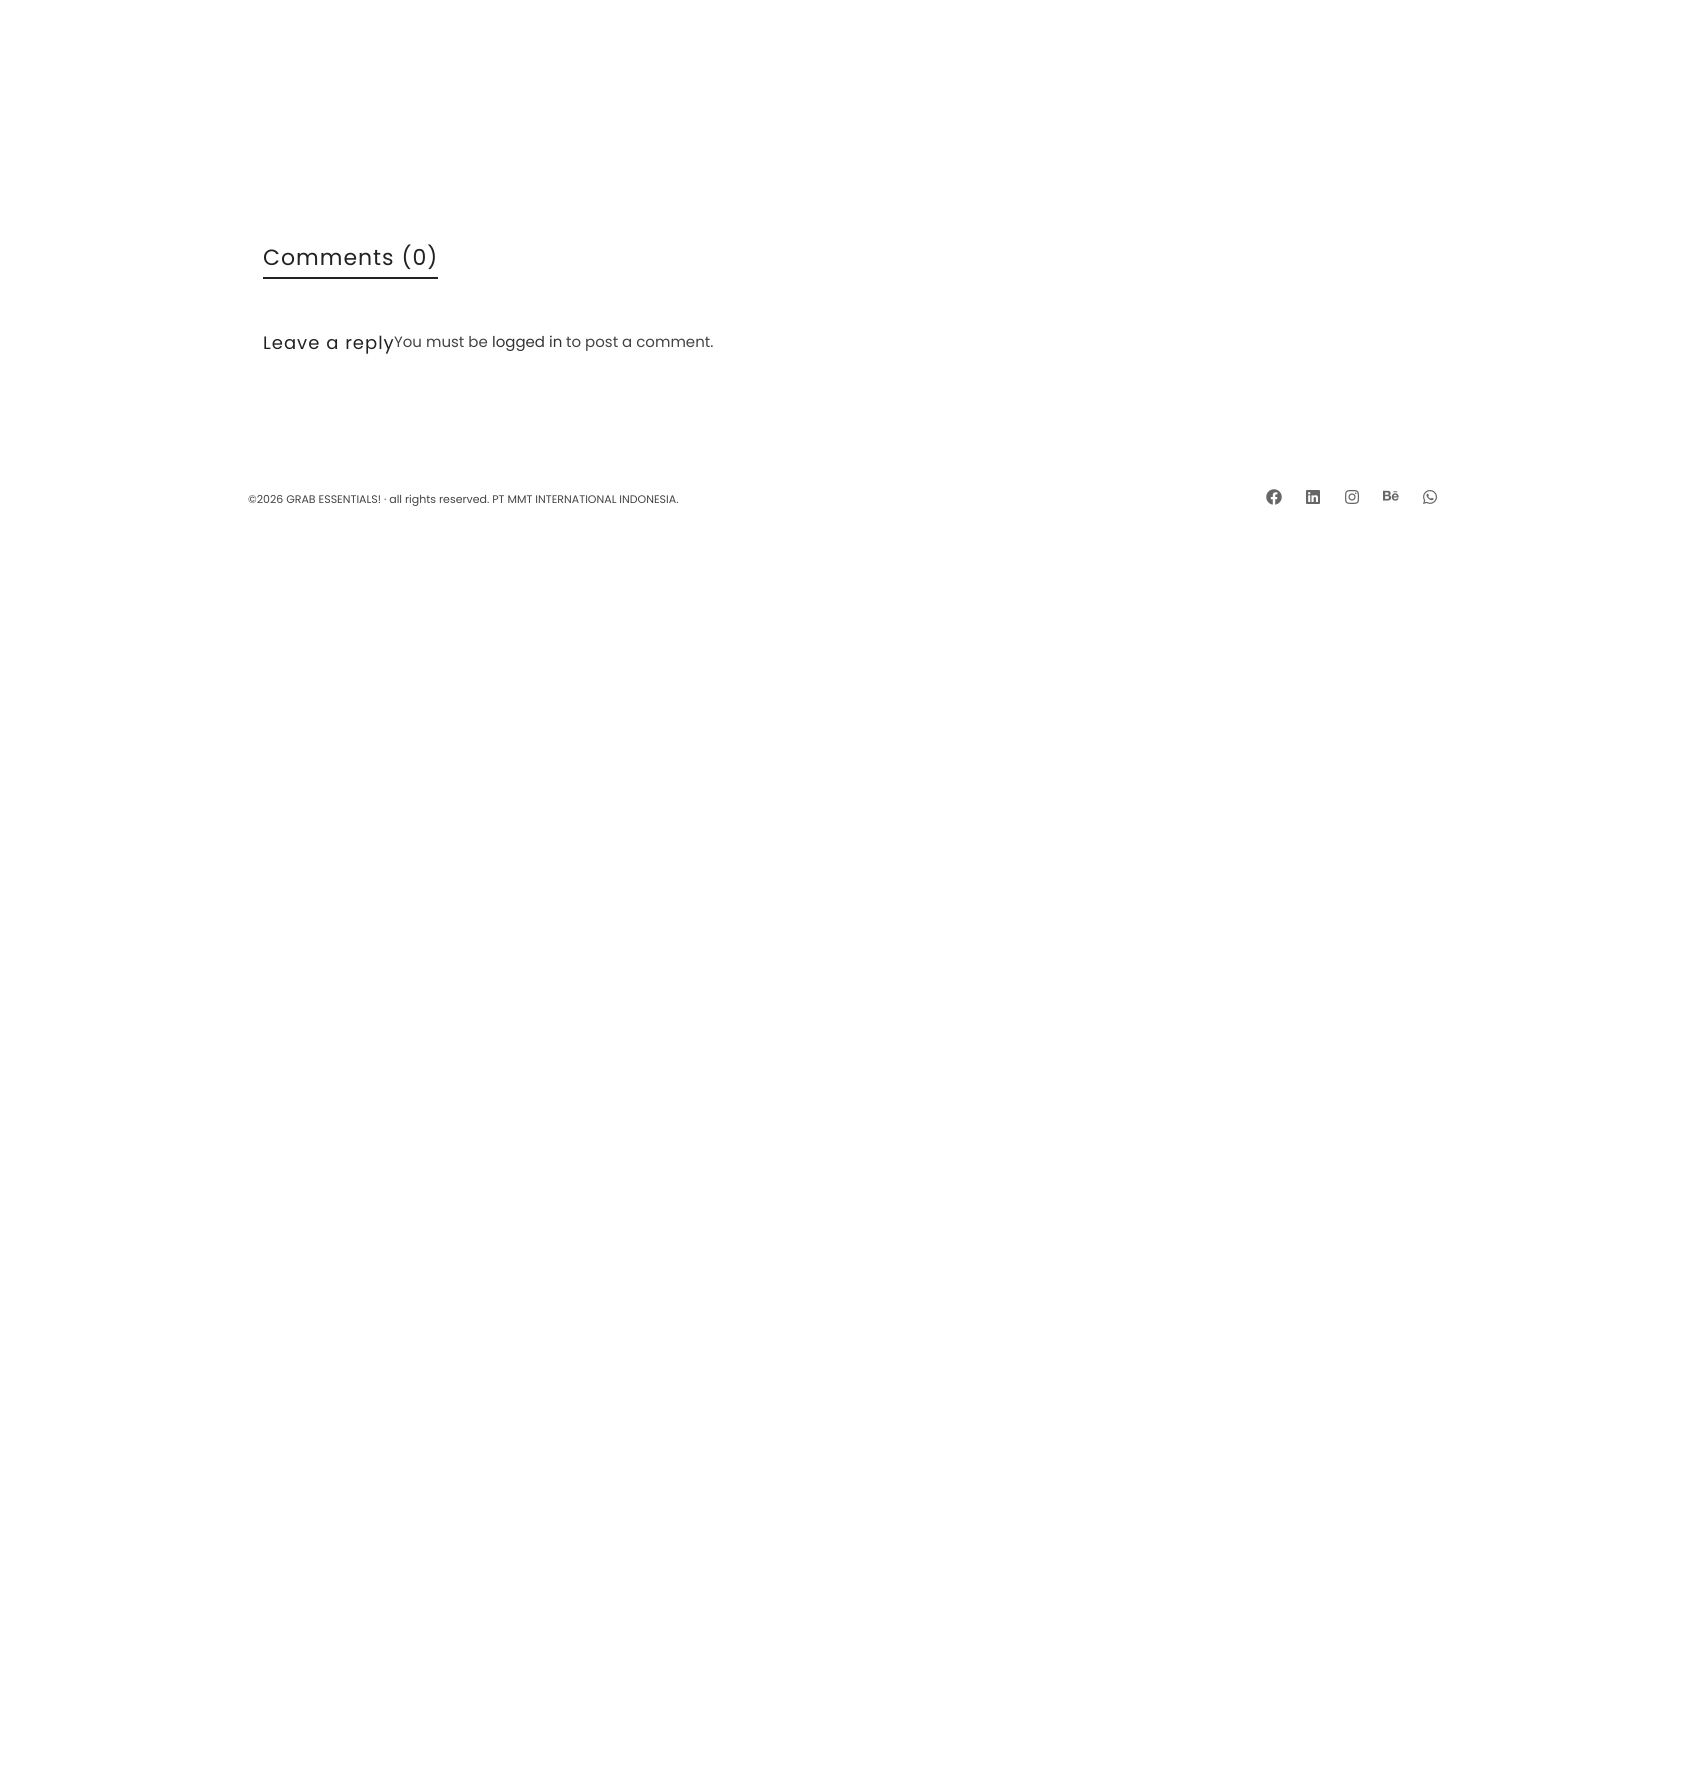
import math
import cairo

surface = cairo.ImageSurface(cairo.FORMAT_RGB24, 1695, 1781)
ctx = cairo.Context(surface)
options = cairo.FontOptions()
options.set_hint_metrics(cairo.HINT_METRICS_OFF)
options.set_hint_style(cairo.HINT_STYLE_NONE)
ctx.set_font_options(options)
ctx.set_miter_limit(4)


def set_color(code):
    ctx.set_source_rgb(*(v / 255 for v in bytes.fromhex(code[-6:])))


def draw_text(x, y, s, family, size, color, bold=False, italic=False):
    ctx.select_font_face(family, cairo.FONT_SLANT_ITALIC if italic else cairo.FONT_SLANT_NORMAL, cairo.FONT_WEIGHT_BOLD if bold else cairo.FONT_WEIGHT_NORMAL)
    ctx.set_font_size(size)
    set_color(color)
    ctx.move_to(x, y)
    ctx.show_text(s)


def draw_spaced(x, y, s, letter, word):
    ctx.move_to(x, y)
    for ch in s:
        ctx.show_text(ch)
        ctx.rel_move_to(letter + word * (ch == ' '), 0)


def fill_rect(x, y, w, h, color):
    set_color(color)
    ctx.rectangle(x, y, w, h)
    ctx.fill()


def draw_image(path, x, y, w, h):
    ctx.save()
    ctx.set_source_surface(cairo.ImageSurface.create_from_png(path), x, y)
    ctx.rectangle(x, y, w, h)
    ctx.fill()
    ctx.restore()


set_color("#ffffff")
ctx.paint()
fill_rect(263, 277, 175, 2, "#222222")
ctx.select_font_face("Poppins")
ctx.set_font_size(22)
draw_spaced(263, 265, "Comments (0)", 1, 0)
ctx.set_font_size(18)
draw_spaced(263, 349, "Leave a reply", 1, 0)
draw_text(394, 347, "You must be", "Poppins", 15, "#444444")
draw_text(492, 347, "logged in", "Poppins", 15, "#333333")
draw_text(566, 347, "to post a comment.", "Poppins", 15, "#444444")
draw_text(248, 503, "©2026 GRAB ESSENTIALS! · all rights reserved. PT MMT INTERNATIONAL INDONESIA.", "Poppins", 11, "#444444")
draw_image("assets/img1.png", 1266, 489, 16, 16)
draw_image("assets/img2.png", 1306, 490, 14, 14)
draw_image("assets/img3.png", 1345, 490, 15, 14)
draw_image("assets/img4.png", 1383, 490, 16, 11)
draw_image("assets/img5.png", 1423, 490, 14, 14)
surface.write_to_png("output.png")
